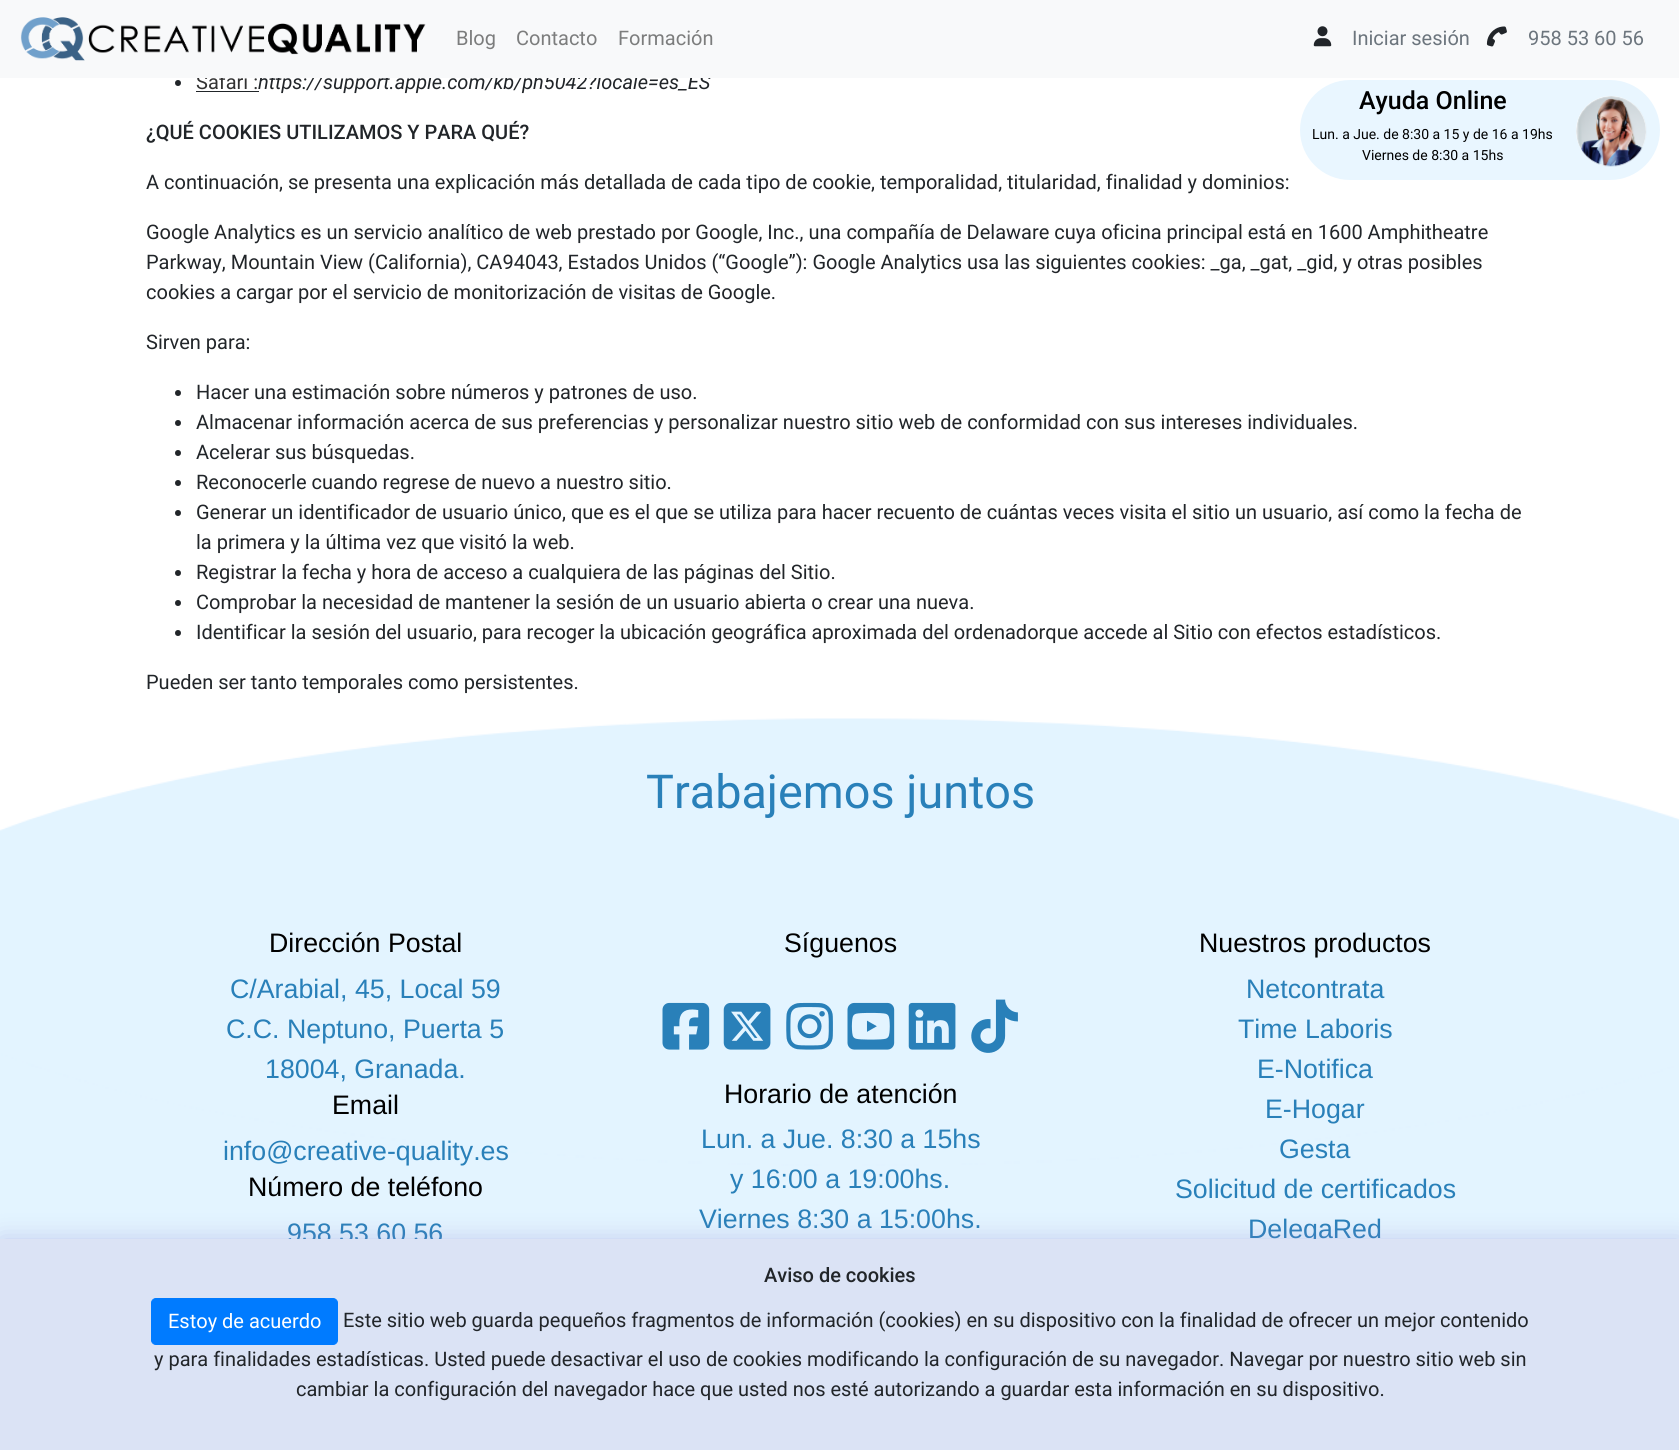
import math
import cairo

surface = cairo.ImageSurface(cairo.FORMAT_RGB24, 1679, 1450)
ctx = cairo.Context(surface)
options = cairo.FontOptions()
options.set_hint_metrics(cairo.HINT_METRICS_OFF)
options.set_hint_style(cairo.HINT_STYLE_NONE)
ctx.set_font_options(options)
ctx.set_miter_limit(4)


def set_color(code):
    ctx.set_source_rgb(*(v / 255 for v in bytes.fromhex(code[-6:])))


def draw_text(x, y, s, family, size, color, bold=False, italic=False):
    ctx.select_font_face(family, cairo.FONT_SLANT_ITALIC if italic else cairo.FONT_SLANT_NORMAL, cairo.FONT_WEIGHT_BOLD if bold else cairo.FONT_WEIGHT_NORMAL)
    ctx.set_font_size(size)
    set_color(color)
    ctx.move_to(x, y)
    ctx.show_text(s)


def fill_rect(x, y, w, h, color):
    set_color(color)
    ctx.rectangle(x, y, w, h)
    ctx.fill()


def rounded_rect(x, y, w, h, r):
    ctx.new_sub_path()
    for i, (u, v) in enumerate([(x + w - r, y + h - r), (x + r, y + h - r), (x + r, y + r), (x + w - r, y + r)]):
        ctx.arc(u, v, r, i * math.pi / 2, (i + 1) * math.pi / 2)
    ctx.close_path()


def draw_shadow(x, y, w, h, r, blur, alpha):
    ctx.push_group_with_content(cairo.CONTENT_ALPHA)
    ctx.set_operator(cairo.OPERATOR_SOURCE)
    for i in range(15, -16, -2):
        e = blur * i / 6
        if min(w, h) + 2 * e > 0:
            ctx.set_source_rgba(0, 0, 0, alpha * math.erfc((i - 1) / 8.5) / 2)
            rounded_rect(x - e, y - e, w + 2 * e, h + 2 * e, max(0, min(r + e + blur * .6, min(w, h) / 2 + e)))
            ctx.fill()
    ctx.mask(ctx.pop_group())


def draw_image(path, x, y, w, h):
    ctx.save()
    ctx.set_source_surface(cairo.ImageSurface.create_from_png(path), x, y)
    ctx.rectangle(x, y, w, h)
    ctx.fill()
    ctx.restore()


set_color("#ffffff")
ctx.paint()
draw_text(196, 89, "Safari :", "Roboto", 20, "#333333")
fill_rect(196, 91, 63, 1, "#212529")
draw_text(258, 89, "https://support.apple.com/kb/ph5042?locale=es_ES", "Roboto", 20, "#212529", italic=True)
fill_rect(0, 0, 1679, 78, "#f8f9fa")
draw_image("assets/img1.png", 20, 17, 406, 44)
draw_text(456, 45, "Blog", "Roboto", 20, "#7c7d7d")
draw_text(516, 45, "Contacto", "Roboto", 20, "#7c7d7d")
draw_text(618, 45, "Formación", "Roboto", 20, "#7c7d7d")
draw_image("assets/img2.png", 1313, 26, 19, 21)
draw_text(1352, 45, "Iniciar sesión", "Roboto", 20, "#6c757d")
draw_image("assets/img3.png", 1486, 26, 21, 21)
draw_text(1528, 45, "958 53 60 56", "Roboto", 20, "#6c757d")
set_color("#212529")
ctx.new_path()
ctx.arc(178, 83, 3, 0, 2 * math.pi)
ctx.fill()
draw_text(146, 139, "¿QUÉ COOKIES UTILIZAMOS Y PARA QUÉ?", "Roboto Medium", 20, "#212529")
draw_text(146, 189, "A continuación, se presenta una explicación más detallada de cada tipo de cookie, temporalidad, titularidad, finalidad y dominios:", "Roboto", 20, "#212529")
draw_text(146, 239, "Google Analytics es un servicio analítico de web prestado por Google, Inc., una compañía de Delaware cuya oficina principal está en 1600 Amphitheatre", "Roboto", 20, "#212529")
draw_text(146, 269, "Parkway, Mountain View (California), CA94043, Estados Unidos (“Google”): Google Analytics usa las siguientes cookies: _ga, _gat, _gid, y otras posibles", "Roboto", 20, "#212529")
draw_text(146, 299, "cookies a cargar por el servicio de monitorización de visitas de Google.", "Roboto", 20, "#212529")
draw_text(146, 349, "Sirven para:", "Roboto", 20, "#212529")
ctx.new_path()
ctx.arc(178, 393, 3, 0, 2 * math.pi)
ctx.fill()
draw_text(196, 399, "Hacer una estimación sobre números y patrones de uso.", "Roboto", 20, "#212529")
ctx.new_path()
ctx.arc(178, 423, 3, 0, 2 * math.pi)
ctx.fill()
draw_text(196, 429, "Almacenar información acerca de sus preferencias y personalizar nuestro sitio web de conformidad con sus intereses individuales.", "Roboto", 20, "#212529")
ctx.new_path()
ctx.arc(178, 453, 3, 0, 2 * math.pi)
ctx.fill()
draw_text(196, 459, "Acelerar sus búsquedas.", "Roboto", 20, "#212529")
ctx.new_path()
ctx.arc(178, 483, 3, 0, 2 * math.pi)
ctx.fill()
draw_text(196, 489, "Reconocerle cuando regrese de nuevo a nuestro sitio.", "Roboto", 20, "#212529")
ctx.new_path()
ctx.arc(178, 513, 3, 0, 2 * math.pi)
ctx.fill()
draw_text(196, 519, "Generar un identificador de usuario único, que es el que se utiliza para hacer recuento de cuántas veces visita el sitio un usuario, así como la fecha de", "Roboto", 20, "#212529")
draw_text(196, 549, "la primera y la última vez que visitó la web.", "Roboto", 20, "#212529")
ctx.new_path()
ctx.arc(178, 573, 3, 0, 2 * math.pi)
ctx.fill()
draw_text(196, 579, "Registrar la fecha y hora de acceso a cualquiera de las páginas del Sitio.", "Roboto", 20, "#212529")
ctx.new_path()
ctx.arc(178, 603, 3, 0, 2 * math.pi)
ctx.fill()
draw_text(196, 609, "Comprobar la necesidad de mantener la sesión de un usuario abierta o crear una nueva.", "Roboto", 20, "#212529")
ctx.new_path()
ctx.arc(178, 633, 3, 0, 2 * math.pi)
ctx.fill()
draw_text(196, 639, "Identificar la sesión del usuario, para recoger la ubicación geográfica aproximada del ordenadorque accede al Sitio con efectos estadísticos.", "Roboto", 20, "#212529")
draw_text(146, 689, "Pueden ser tanto temporales como persistentes.", "Roboto", 20, "#212529")
set_color("#e9f6ff")
rounded_rect(1300, 80, 360, 100, 50)
ctx.fill()
draw_text(1359, 109, "Ayuda Online", "Roboto Medium", 25, "#000000")
draw_text(1312, 139, "Lun. a Jue. de 8:30 a 15 y de 16 a 19hs", "Roboto", 14, "#000000")
draw_text(1362, 160, "Viernes de 8:30 a 15hs", "Roboto", 14, "#000000")
set_color("#ffffff")
ctx.new_path()
ctx.arc(1611, 131, 35, 0, 2 * math.pi)
ctx.fill()
draw_image("assets/img4.png", 1576, 96, 71, 71)
draw_image("assets/img5.png", 0, 718, 1679, 521)
draw_text(646, 808, "Trabajemos juntos", "Roboto", 46.75, "#2980b9")
draw_text(269, 952, "Dirección Postal", "Liberation Sans", 26.75, "#000000")
draw_text(230, 998, "C/Arabial, 45, Local 59", "Liberation Sans", 26.75, "#2980b9")
draw_text(226, 1038, "C.C. Neptuno, Puerta 5", "Liberation Sans", 26.75, "#2980b9")
draw_text(265, 1078, "18004, Granada.", "Liberation Sans", 26.75, "#2980b9")
draw_text(332, 1114, "Email", "Liberation Sans", 26.75, "#000000")
draw_text(223, 1160, "info@creative-quality.es", "Liberation Sans", 26.75, "#2980b9")
draw_text(248, 1196, "Número de teléfono", "Liberation Sans", 26.75, "#000000")
draw_text(287, 1242, "958 53 60 56", "Liberation Sans", 26.75, "#2980b9")
draw_text(784, 952, "Síguenos", "Liberation Sans", 26.75, "#000000")
draw_image("assets/img6.png", 662, 1002, 48, 48)
draw_image("assets/img7.png", 723, 1002, 48, 48)
draw_image("assets/img8.png", 786, 1002, 47, 48)
draw_image("assets/img9.png", 847, 1002, 48, 48)
draw_image("assets/img10.png", 908, 1002, 48, 48)
draw_image("assets/img11.png", 971, 999, 47, 54)
draw_text(724, 1103, "Horario de atención", "Liberation Sans", 26.75, "#000000")
draw_text(701, 1148, "Lun. a Jue. 8:30 a 15hs", "Liberation Sans", 26.75, "#2980b9")
draw_text(730, 1188, "y 16:00 a 19:00hs.", "Liberation Sans", 26.75, "#2980b9")
draw_text(699, 1228, "Viernes 8:30 a 15:00hs.", "Liberation Sans", 26.75, "#2980b9")
draw_text(1199, 952, "Nuestros productos", "Liberation Sans", 26.75, "#000000")
draw_text(1246, 998, "Netcontrata", "Liberation Sans", 26.75, "#2980b9")
draw_text(1238, 1038, "Time Laboris", "Liberation Sans", 26.75, "#2980b9")
draw_text(1257, 1078, "E-Notifica", "Liberation Sans", 26.75, "#2980b9")
draw_text(1265, 1118, "E-Hogar", "Liberation Sans", 26.75, "#2980b9")
draw_text(1279, 1158, "Gesta", "Liberation Sans", 26.75, "#2980b9")
draw_text(1175, 1198, "Solicitud de certificados", "Liberation Sans", 26.75, "#2980b9")
draw_text(1248, 1238, "DelegaRed", "Liberation Sans", 26.75, "#2980b9")
set_color("#8981d1")
draw_shadow(1, 1240, 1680, 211, 0, 12.5, 0.4)
fill_rect(0, 1239, 1679, 211, "#dbe3f5")
draw_text(764, 1282, "Aviso de cookies", "Roboto Medium", 20, "#212529")
set_color("#007bff")
rounded_rect(151.5, 1298.5, 186, 46, 4.5)
ctx.fill_preserve()
ctx.set_line_width(1)
ctx.stroke()
draw_text(168, 1328, "Estoy de acuerdo", "Roboto", 20, "#ffffff")
draw_text(343, 1327, "Este sitio web guarda pequeños fragmentos de información (cookies) en su dispositivo con la finalidad de ofrecer un mejor contenido", "Roboto", 20, "#212529")
draw_text(154, 1366, "y para finalidades estadísticas. Usted puede desactivar el uso de cookies modificando la configuración de su navegador. Navegar por nuestro sitio web sin", "Roboto", 20, "#212529")
draw_text(296, 1396, "cambiar la configuración del navegador hace que usted nos esté autorizando a guardar esta información en su dispositivo.", "Roboto", 20, "#212529")
surface.write_to_png("output.png")
